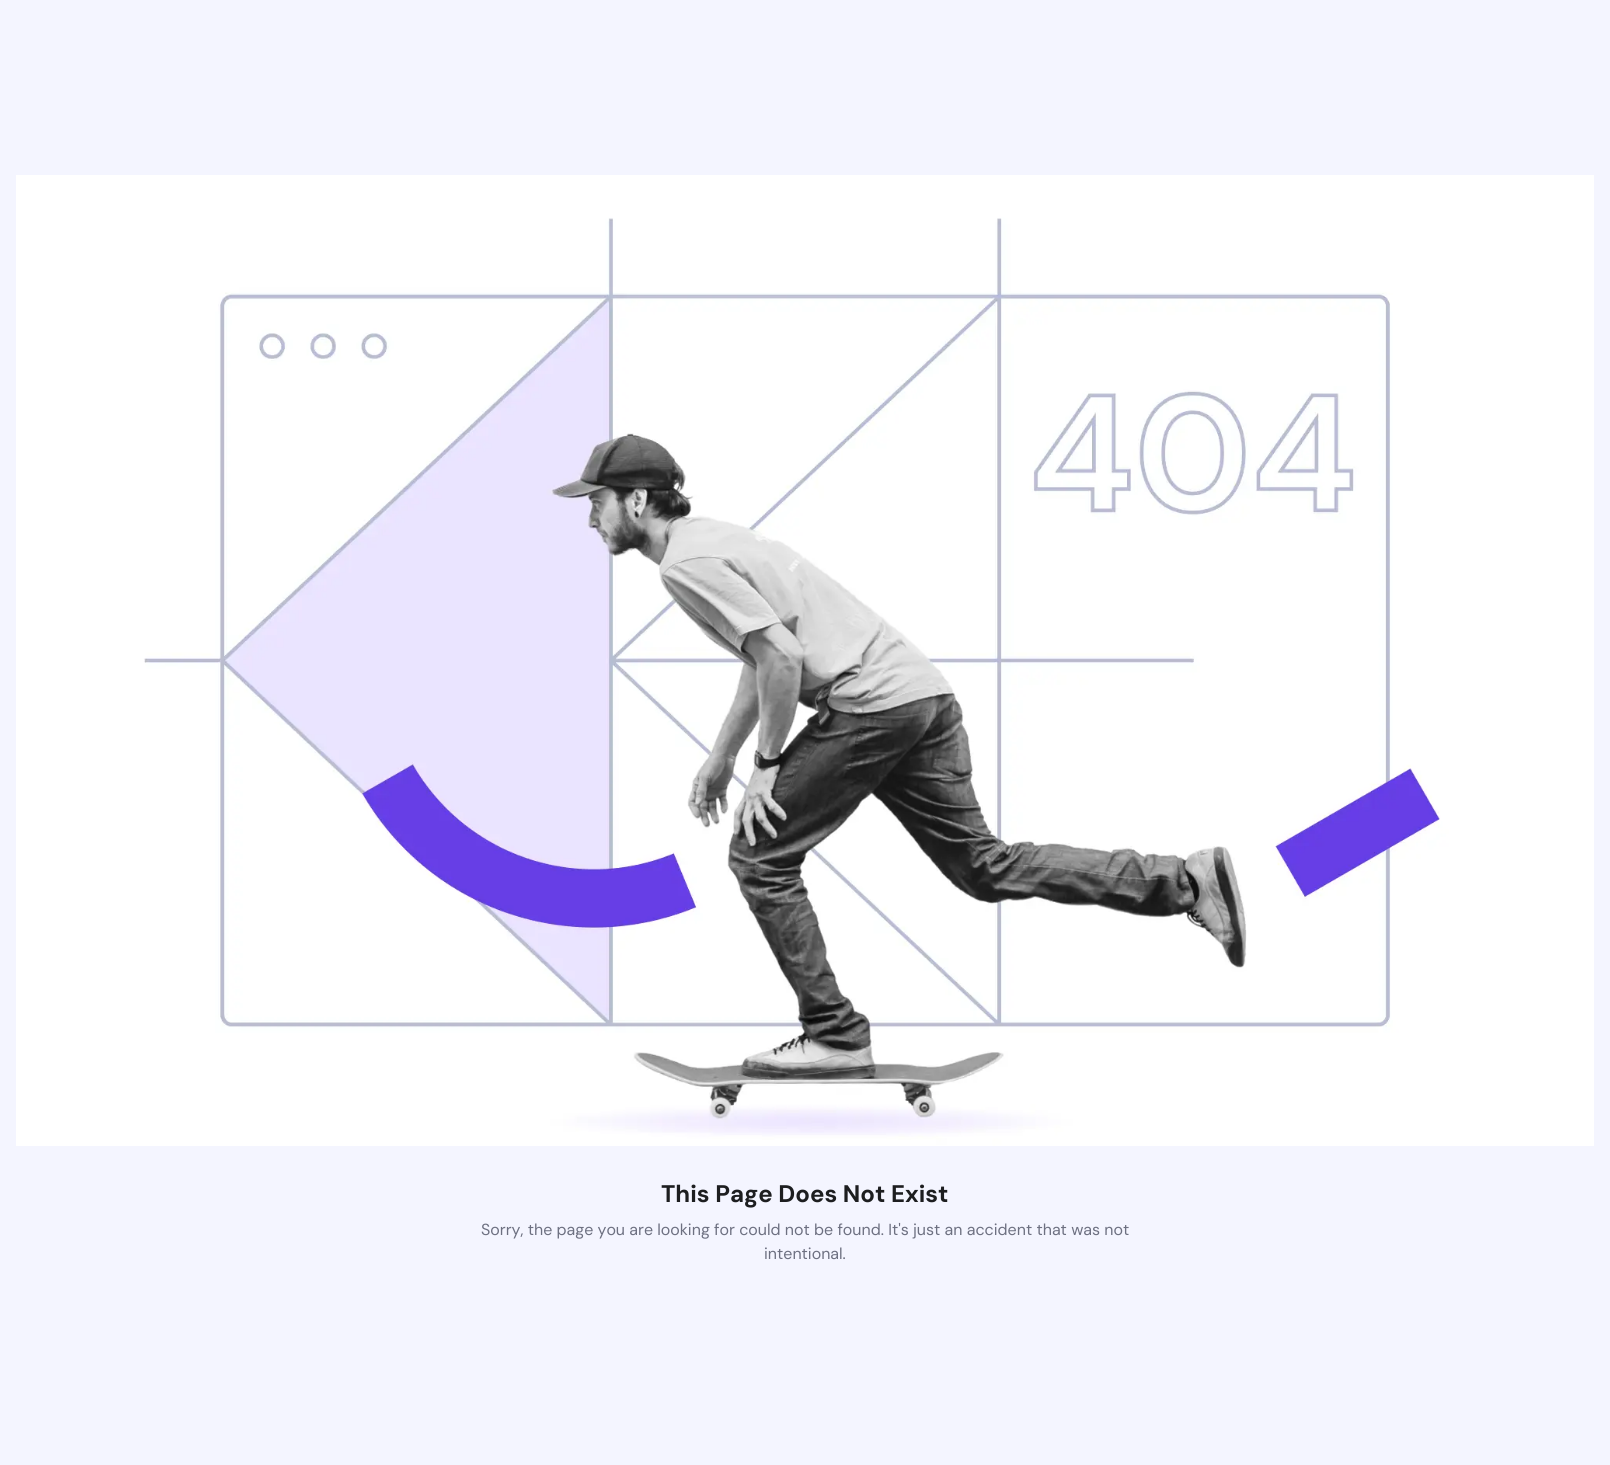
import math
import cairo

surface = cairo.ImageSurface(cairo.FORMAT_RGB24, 1610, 1465)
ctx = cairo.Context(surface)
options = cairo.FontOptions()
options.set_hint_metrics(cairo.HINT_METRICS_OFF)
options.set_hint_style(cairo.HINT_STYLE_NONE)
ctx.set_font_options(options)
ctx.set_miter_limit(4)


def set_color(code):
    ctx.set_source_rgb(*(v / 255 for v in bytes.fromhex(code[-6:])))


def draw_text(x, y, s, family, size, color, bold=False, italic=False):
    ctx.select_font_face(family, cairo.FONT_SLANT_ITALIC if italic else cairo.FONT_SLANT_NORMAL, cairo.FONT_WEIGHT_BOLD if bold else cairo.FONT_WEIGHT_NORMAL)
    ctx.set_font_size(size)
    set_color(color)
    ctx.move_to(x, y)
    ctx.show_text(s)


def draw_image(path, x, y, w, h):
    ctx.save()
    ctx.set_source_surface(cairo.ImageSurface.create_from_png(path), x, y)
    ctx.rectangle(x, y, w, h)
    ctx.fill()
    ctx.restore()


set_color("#f4f5ff")
ctx.paint()
draw_image("assets/img1.png", 16, 175, 1578, 971)
draw_text(661, 1202, "This Page Does Not Exist", "DM Sans", 24, "#1d1e20", bold=True)
draw_text(481, 1235, "Sorry, the page you are looking for could not be found. It's just an accident that was not", "DM Sans", 16, "#6d7081")
draw_text(764, 1259, "intentional.", "DM Sans", 16, "#6d7081")
surface.write_to_png("output.png")
